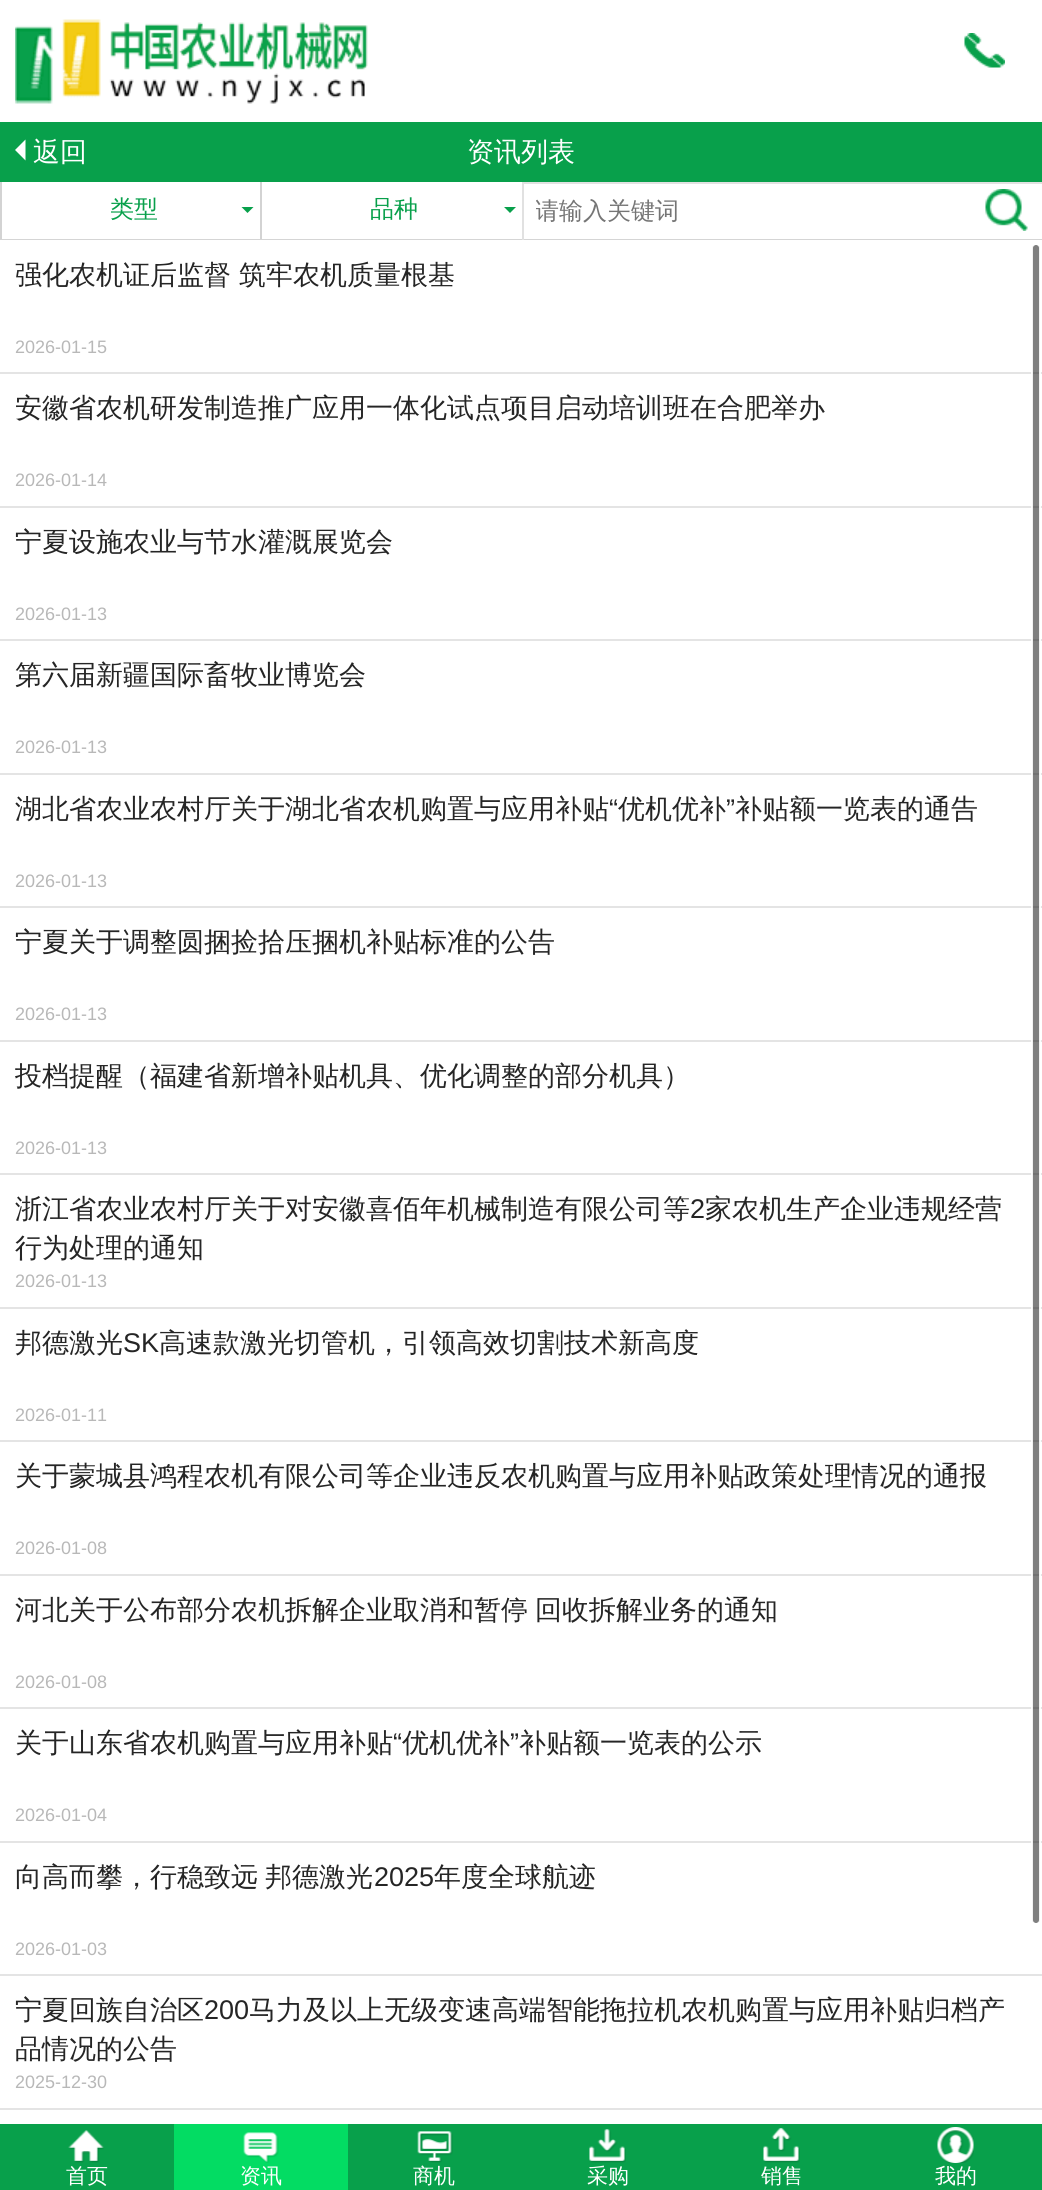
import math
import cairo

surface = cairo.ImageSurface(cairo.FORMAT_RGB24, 1042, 2190)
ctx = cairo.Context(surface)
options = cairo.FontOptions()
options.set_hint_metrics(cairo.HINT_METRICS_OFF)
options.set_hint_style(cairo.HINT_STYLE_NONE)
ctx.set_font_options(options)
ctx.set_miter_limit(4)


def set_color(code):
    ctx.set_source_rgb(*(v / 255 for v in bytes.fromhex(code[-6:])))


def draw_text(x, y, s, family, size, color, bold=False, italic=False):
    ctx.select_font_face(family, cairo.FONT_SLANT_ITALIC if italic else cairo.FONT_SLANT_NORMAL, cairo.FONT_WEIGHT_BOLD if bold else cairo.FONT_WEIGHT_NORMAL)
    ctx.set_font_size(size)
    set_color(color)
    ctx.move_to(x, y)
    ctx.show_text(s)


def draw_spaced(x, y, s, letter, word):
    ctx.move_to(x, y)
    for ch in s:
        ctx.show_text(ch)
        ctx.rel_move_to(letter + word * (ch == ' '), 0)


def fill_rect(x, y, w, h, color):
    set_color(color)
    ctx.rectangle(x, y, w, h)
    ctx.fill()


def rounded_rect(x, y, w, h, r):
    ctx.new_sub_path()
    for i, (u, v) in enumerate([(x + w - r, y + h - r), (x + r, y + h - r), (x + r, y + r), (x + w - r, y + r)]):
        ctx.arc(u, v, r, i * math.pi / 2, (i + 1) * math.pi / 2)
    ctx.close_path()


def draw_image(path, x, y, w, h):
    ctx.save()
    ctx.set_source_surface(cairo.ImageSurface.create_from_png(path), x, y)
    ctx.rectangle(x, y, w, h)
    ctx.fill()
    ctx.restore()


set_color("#ffffff")
ctx.paint()
draw_image("assets/img1.png", 15, 19, 353, 85)
draw_image("assets/img2.png", 964, 33, 41, 35)
fill_rect(0, 122, 1042, 60, "#08a04b")
set_color("#ffffff")
ctx.new_path()
ctx.move_to(25.5, 139.5)
ctx.line_to(25.5, 160.5)
ctx.line_to(15, 150)
ctx.close_path()
ctx.fill()
draw_text(33, 161, "返回", "WenQuanYi Zen Hei Medium", 27, "#ffffff")
draw_text(467, 161, "资讯列表", "WenQuanYi Zen Hei Medium", 27, "#ffffff")
fill_rect(0, 239, 1042, 1, "#d5d5d5")
fill_rect(260, 182, 2, 57, "#d3d3d3")
fill_rect(0, 182, 2, 57, "#d3d3d3")
draw_text(110, 217, "类型", "WenQuanYi Zen Hei Medium", 24, "#08a04b")
ctx.new_path()
ctx.move_to(241.5, 207)
ctx.line_to(253.5, 207)
ctx.line_to(247.5, 213)
ctx.close_path()
ctx.fill()
draw_text(370, 217, "品种", "WenQuanYi Zen Hei Medium", 24, "#08a04b")
ctx.new_path()
ctx.move_to(504, 207)
ctx.line_to(516, 207)
ctx.line_to(510, 213)
ctx.close_path()
ctx.fill()
ctx.save()
ctx.rectangle(0, 182, 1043, 58)
ctx.clip()
ctx.rectangle(523, 183, 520, 58)
set_color("#e1e1e1")
ctx.stroke()
ctx.restore()
ctx.save()
ctx.rectangle(536, 197, 483, 30)
ctx.clip()
draw_text(535, 219, "请输入关键词", "WenQuanYi Zen Hei Medium", 24, "#757575")
ctx.restore()
draw_image("assets/img3.png", 985, 189, 43, 42)
fill_rect(0, 372, 1042, 2, "#e4e4e4")
draw_text(15, 284, "强化农机证后监督", "WenQuanYi Zen Hei Medium", 27, "#252525")
draw_text(239, 284, "筑牢农机质量根基", "WenQuanYi Zen Hei Medium", 27, "#252525")
draw_text(15, 353, "2026-01-15", "Liberation Sans", 18, "#b8b8b8")
fill_rect(0, 506, 1042, 2, "#e4e4e4")
draw_text(15, 417, "安徽省农机研发制造推广应用一体化试点项目启动培训班在合肥举办", "WenQuanYi Zen Hei Medium", 27, "#252525")
draw_text(15, 486, "2026-01-14", "Liberation Sans", 18, "#b8b8b8")
fill_rect(0, 639, 1042, 2, "#e4e4e4")
draw_text(15, 551, "宁夏设施农业与节水灌溉展览会", "WenQuanYi Zen Hei Medium", 27, "#252525")
draw_text(15, 620, "2026-01-13", "Liberation Sans", 18, "#b8b8b8")
fill_rect(0, 773, 1042, 2, "#e4e4e4")
draw_text(15, 684, "第六届新疆国际畜牧业博览会", "WenQuanYi Zen Hei Medium", 27, "#252525")
draw_text(15, 753, "2026-01-13", "Liberation Sans", 18, "#b8b8b8")
fill_rect(0, 906, 1042, 2, "#e4e4e4")
draw_text(15, 818, "湖北省农业农村厅关于湖北省农机购置与应用补贴", "WenQuanYi Zen Hei Medium", 27, "#252525")
draw_text(609, 818, "“", "Liberation Sans", 27, "#252525")
draw_text(618, 818, "优机优补", "WenQuanYi Zen Hei Medium", 27, "#252525")
draw_text(726, 818, "”", "Liberation Sans", 27, "#252525")
draw_text(735, 818, "补贴额一览表的通告", "WenQuanYi Zen Hei Medium", 27, "#252525")
draw_text(15, 887, "2026-01-13", "Liberation Sans", 18, "#b8b8b8")
fill_rect(0, 1040, 1042, 2, "#e4e4e4")
draw_text(15, 951, "宁夏关于调整圆捆捡拾压捆机补贴标准的公告", "WenQuanYi Zen Hei Medium", 27, "#252525")
draw_text(15, 1020, "2026-01-13", "Liberation Sans", 18, "#b8b8b8")
fill_rect(0, 1173, 1042, 2, "#e4e4e4")
draw_text(15, 1085, "投档提醒（福建省新增补贴机具、优化调整的部分机具）", "WenQuanYi Zen Hei Medium", 27, "#252525")
draw_text(15, 1154, "2026-01-13", "Liberation Sans", 18, "#b8b8b8")
fill_rect(0, 1307, 1042, 2, "#e4e4e4")
draw_text(15, 1218, "浙江省农业农村厅关于对安徽喜佰年机械制造有限公司等", "WenQuanYi Zen Hei Medium", 27, "#252525")
draw_text(690, 1218, "2", "Liberation Sans", 27, "#252525")
draw_text(705, 1218, "家农机生产企业违规经营", "WenQuanYi Zen Hei Medium", 27, "#252525")
draw_text(15, 1257, "行为处理的通知", "WenQuanYi Zen Hei Medium", 27, "#252525")
draw_text(15, 1287, "2026-01-13", "Liberation Sans", 18, "#b8b8b8")
fill_rect(0, 1440, 1042, 2, "#e4e4e4")
draw_text(15, 1352, "邦德激光", "WenQuanYi Zen Hei Medium", 27, "#252525")
draw_text(123, 1352, "SK", "Liberation Sans", 27, "#252525")
draw_text(159, 1352, "高速款激光切管机，引领高效切割技术新高度", "WenQuanYi Zen Hei Medium", 27, "#252525")
draw_text(15, 1421, "2026-01-11", "Liberation Sans", 18, "#b8b8b8")
fill_rect(0, 1574, 1042, 2, "#e4e4e4")
draw_text(15, 1485, "关于蒙城县鸿程农机有限公司等企业违反农机购置与应用补贴政策处理情况的通报", "WenQuanYi Zen Hei Medium", 27, "#252525")
draw_text(15, 1554, "2026-01-08", "Liberation Sans", 18, "#b8b8b8")
fill_rect(0, 1707, 1042, 2, "#e4e4e4")
ctx.select_font_face("WenQuanYi Zen Hei Medium")
ctx.set_font_size(27)
set_color("#252525")
draw_spaced(15, 1619, "河北关于公布部分农机拆解企业取消和暂停 回收拆解业务的通知", 0, -1)
draw_text(15, 1688, "2026-01-08", "Liberation Sans", 18, "#b8b8b8")
fill_rect(0, 1841, 1042, 2, "#e4e4e4")
draw_text(15, 1752, "关于山东省农机购置与应用补贴", "WenQuanYi Zen Hei Medium", 27, "#252525")
draw_text(393, 1752, "“", "Liberation Sans", 27, "#252525")
draw_text(402, 1752, "优机优补", "WenQuanYi Zen Hei Medium", 27, "#252525")
draw_text(510, 1752, "”", "Liberation Sans", 27, "#252525")
draw_text(519, 1752, "补贴额一览表的公示", "WenQuanYi Zen Hei Medium", 27, "#252525")
draw_text(15, 1821, "2026-01-04", "Liberation Sans", 18, "#b8b8b8")
fill_rect(0, 1974, 1042, 2, "#e4e4e4")
ctx.select_font_face("WenQuanYi Zen Hei Medium")
ctx.set_font_size(27)
set_color("#252525")
draw_spaced(15, 1886, "向高而攀，行稳致远 邦德激光", 0, -1)
draw_text(374, 1886, "2025", "Liberation Sans", 27, "#252525")
draw_text(434, 1886, "年度全球航迹", "WenQuanYi Zen Hei Medium", 27, "#252525")
draw_text(15, 1955, "2026-01-03", "Liberation Sans", 18, "#b8b8b8")
fill_rect(0, 2108, 1042, 2, "#e4e4e4")
draw_text(15, 2019, "宁夏回族自治区", "WenQuanYi Zen Hei Medium", 27, "#252525")
draw_text(204, 2019, "200", "Liberation Sans", 27, "#252525")
draw_text(249, 2019, "马力及以上无级变速高端智能拖拉机农机购置与应用补贴归档产", "WenQuanYi Zen Hei Medium", 27, "#252525")
draw_text(15, 2058, "品情况的公告", "WenQuanYi Zen Hei Medium", 27, "#252525")
draw_text(15, 2088, "2025-12-30", "Liberation Sans", 18, "#b8b8b8")
ctx.set_source_rgba(0, 0, 0, 0.5)
rounded_rect(1032, 245, 8, 1678, 3)
ctx.fill()
rounded_rect(1032, 244, 8, 1680, 4)
ctx.set_source_rgba(1, 1, 1, 0.9)
ctx.stroke()
fill_rect(0, 2124, 1042, 66, "#08a04b")
draw_image("assets/img4.png", 68, 2130, 36, 33)
draw_text(66, 2183, "首页", "WenQuanYi Zen Hei Medium", 21, "#ffffff")
fill_rect(174, 2124, 174, 66, "#03dc63")
draw_image("assets/img5.png", 243, 2132, 36, 31)
draw_text(240, 2183, "资讯", "WenQuanYi Zen Hei Medium", 21, "#ffffff")
draw_image("assets/img6.png", 417, 2131, 36, 32)
draw_text(413, 2183, "商机", "WenQuanYi Zen Hei Medium", 21, "#ffffff")
draw_image("assets/img7.png", 589, 2129, 37, 34)
draw_text(587, 2183, "采购", "WenQuanYi Zen Hei Medium", 21, "#ffffff")
draw_image("assets/img8.png", 763, 2128, 37, 35)
draw_text(761, 2183, "销售", "WenQuanYi Zen Hei Medium", 21, "#ffffff")
draw_image("assets/img9.png", 937, 2127, 37, 36)
draw_text(935, 2183, "我的", "WenQuanYi Zen Hei Medium", 21, "#ffffff")
surface.write_to_png("output.png")
